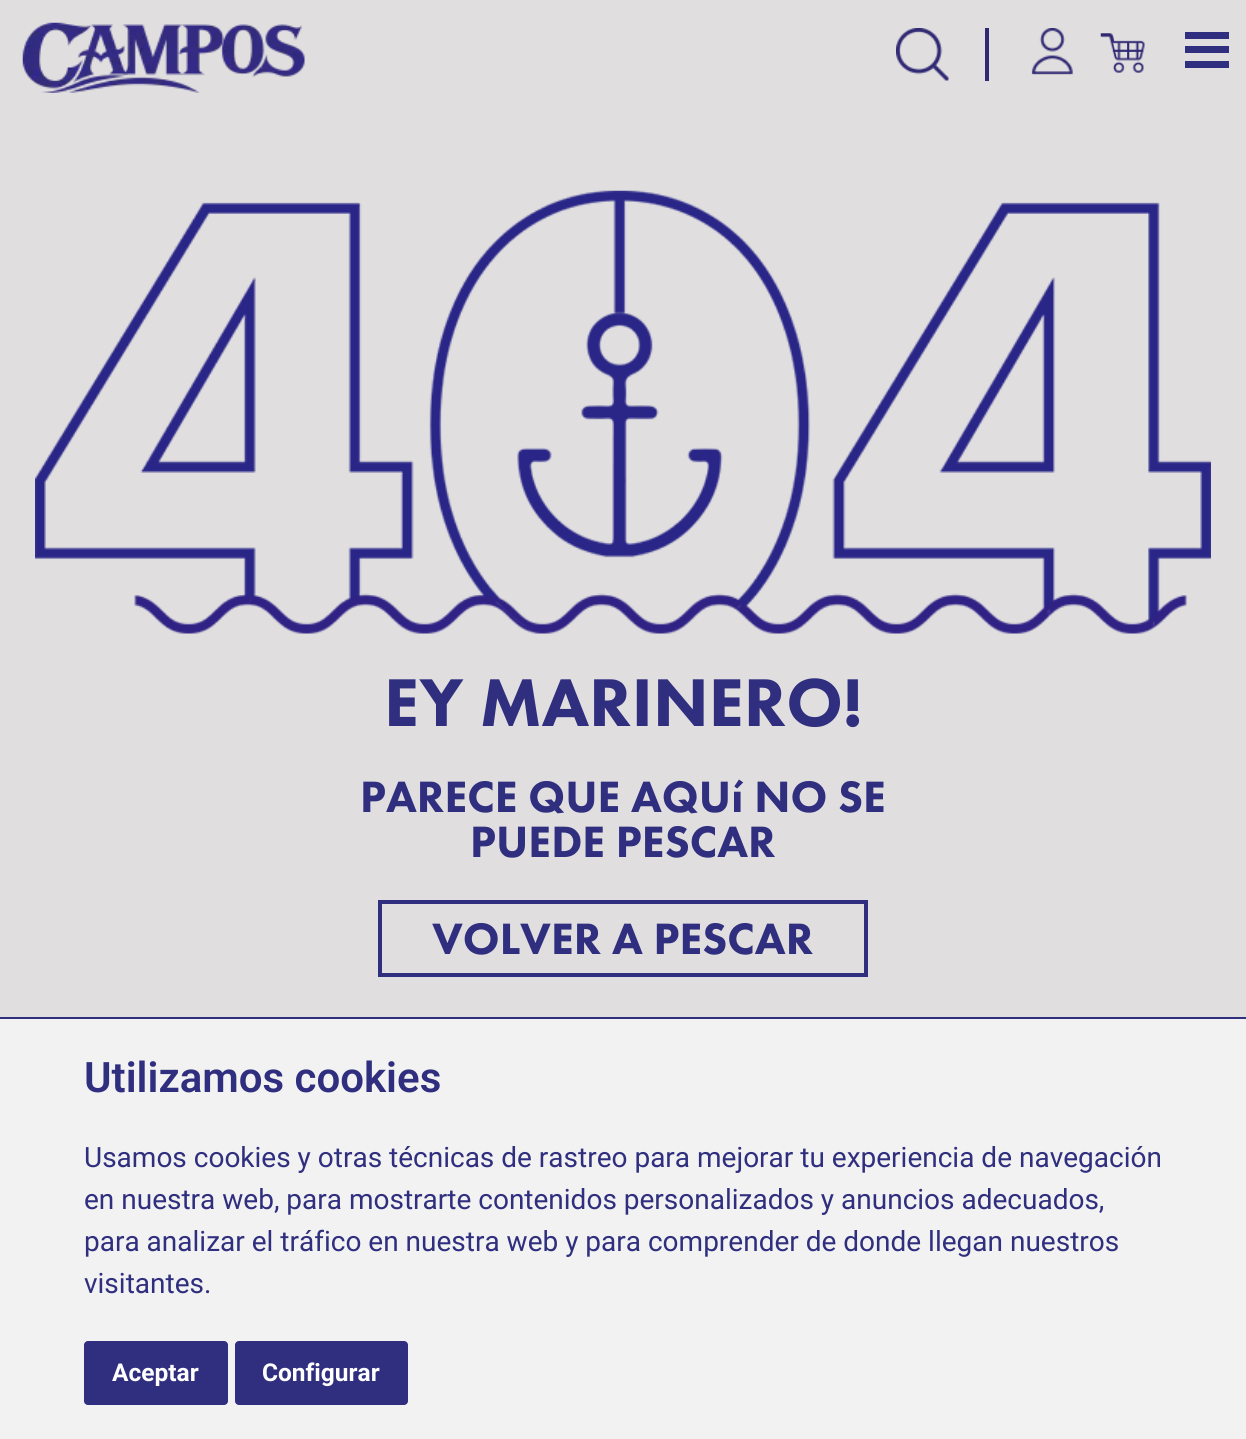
import math
import cairo

surface = cairo.ImageSurface(cairo.FORMAT_RGB24, 1246, 1439)
ctx = cairo.Context(surface)
options = cairo.FontOptions()
options.set_hint_metrics(cairo.HINT_METRICS_OFF)
options.set_hint_style(cairo.HINT_STYLE_NONE)
ctx.set_font_options(options)
ctx.set_miter_limit(4)


def set_color(code):
    ctx.set_source_rgb(*(v / 255 for v in bytes.fromhex(code[-6:])))


def draw_text(x, y, s, family, size, color, bold=False, italic=False):
    ctx.select_font_face(family, cairo.FONT_SLANT_ITALIC if italic else cairo.FONT_SLANT_NORMAL, cairo.FONT_WEIGHT_BOLD if bold else cairo.FONT_WEIGHT_NORMAL)
    ctx.set_font_size(size)
    set_color(color)
    ctx.move_to(x, y)
    ctx.show_text(s)


def fill_rect(x, y, w, h, color):
    set_color(color)
    ctx.rectangle(x, y, w, h)
    ctx.fill()


def rounded_rect(x, y, w, h, r):
    ctx.new_sub_path()
    for i, (u, v) in enumerate([(x + w - r, y + h - r), (x + r, y + h - r), (x + r, y + r), (x + w - r, y + r)]):
        ctx.arc(u, v, r, i * math.pi / 2, (i + 1) * math.pi / 2)
    ctx.close_path()


def draw_image(path, x, y, w, h):
    ctx.save()
    ctx.set_source_surface(cairo.ImageSurface.create_from_png(path), x, y)
    ctx.rectangle(x, y, w, h)
    ctx.fill()
    ctx.restore()


set_color("#e0dede")
ctx.paint()
draw_image("assets/img1.png", 22, 22, 283, 71)
draw_image("assets/img2.png", 896, 28, 53, 53)
fill_rect(985, 28, 4, 53, "#2f2873")
draw_image("assets/img3.png", 1031, 28, 42, 47)
draw_image("assets/img4.png", 1100, 33, 45, 40)
fill_rect(1185, 32, 44, 7, "#302f7f")
fill_rect(1185, 46, 44, 7, "#302f7f")
fill_rect(1185, 61, 44, 7, "#302f7f")
draw_image("assets/img5.png", 35, 190, 1176, 444)
draw_text(384, 726, "EY MARINERO!", "Futura PT Black", 70, "#302f7f")
draw_text(360, 812, "PARECE QUE AQUí NO SE", "Futura PT Black", 45.5, "#302f7f")
draw_text(470, 857, "PUEDE PESCAR", "Futura PT Black", 45.5, "#302f7f")
ctx.rectangle(380, 902, 486, 73)
ctx.set_line_width(4)
ctx.stroke()
draw_text(432, 954, "VOLVER A PESCAR", "Futura PT Black", 45.5, "#302f7f")
fill_rect(0, 1019, 1246, 420, "#f2f2f2")
fill_rect(0, 1017, 1246, 2, "#302f7f")
draw_text(84, 1092, "Utilizamos cookies", "Roboto SemiBold", 42, "#302f7f")
draw_text(84, 1167, "Usamos cookies y otras técnicas de rastreo para mejorar tu experiencia de navegación", "Roboto", 28, "#302f7f")
draw_text(84, 1209, "en nuestra web, para mostrarte contenidos personalizados y anuncios adecuados,", "Roboto", 28, "#302f7f")
draw_text(84, 1251, "para analizar el tráfico en nuestra web y para comprender de donde llegan nuestros", "Roboto", 28, "#302f7f")
draw_text(84, 1293, "visitantes.", "Roboto", 28, "#302f7f")
rounded_rect(84, 1341, 144, 64, 4)
ctx.fill()
draw_text(112, 1381, "Aceptar", "Roboto", 24.5, "#ffffff", bold=True)
set_color("#302f7f")
rounded_rect(235, 1341, 173, 64, 4)
ctx.fill()
draw_text(262, 1381, "Configurar", "Roboto", 24.5, "#ffffff", bold=True)
surface.write_to_png("output.png")
